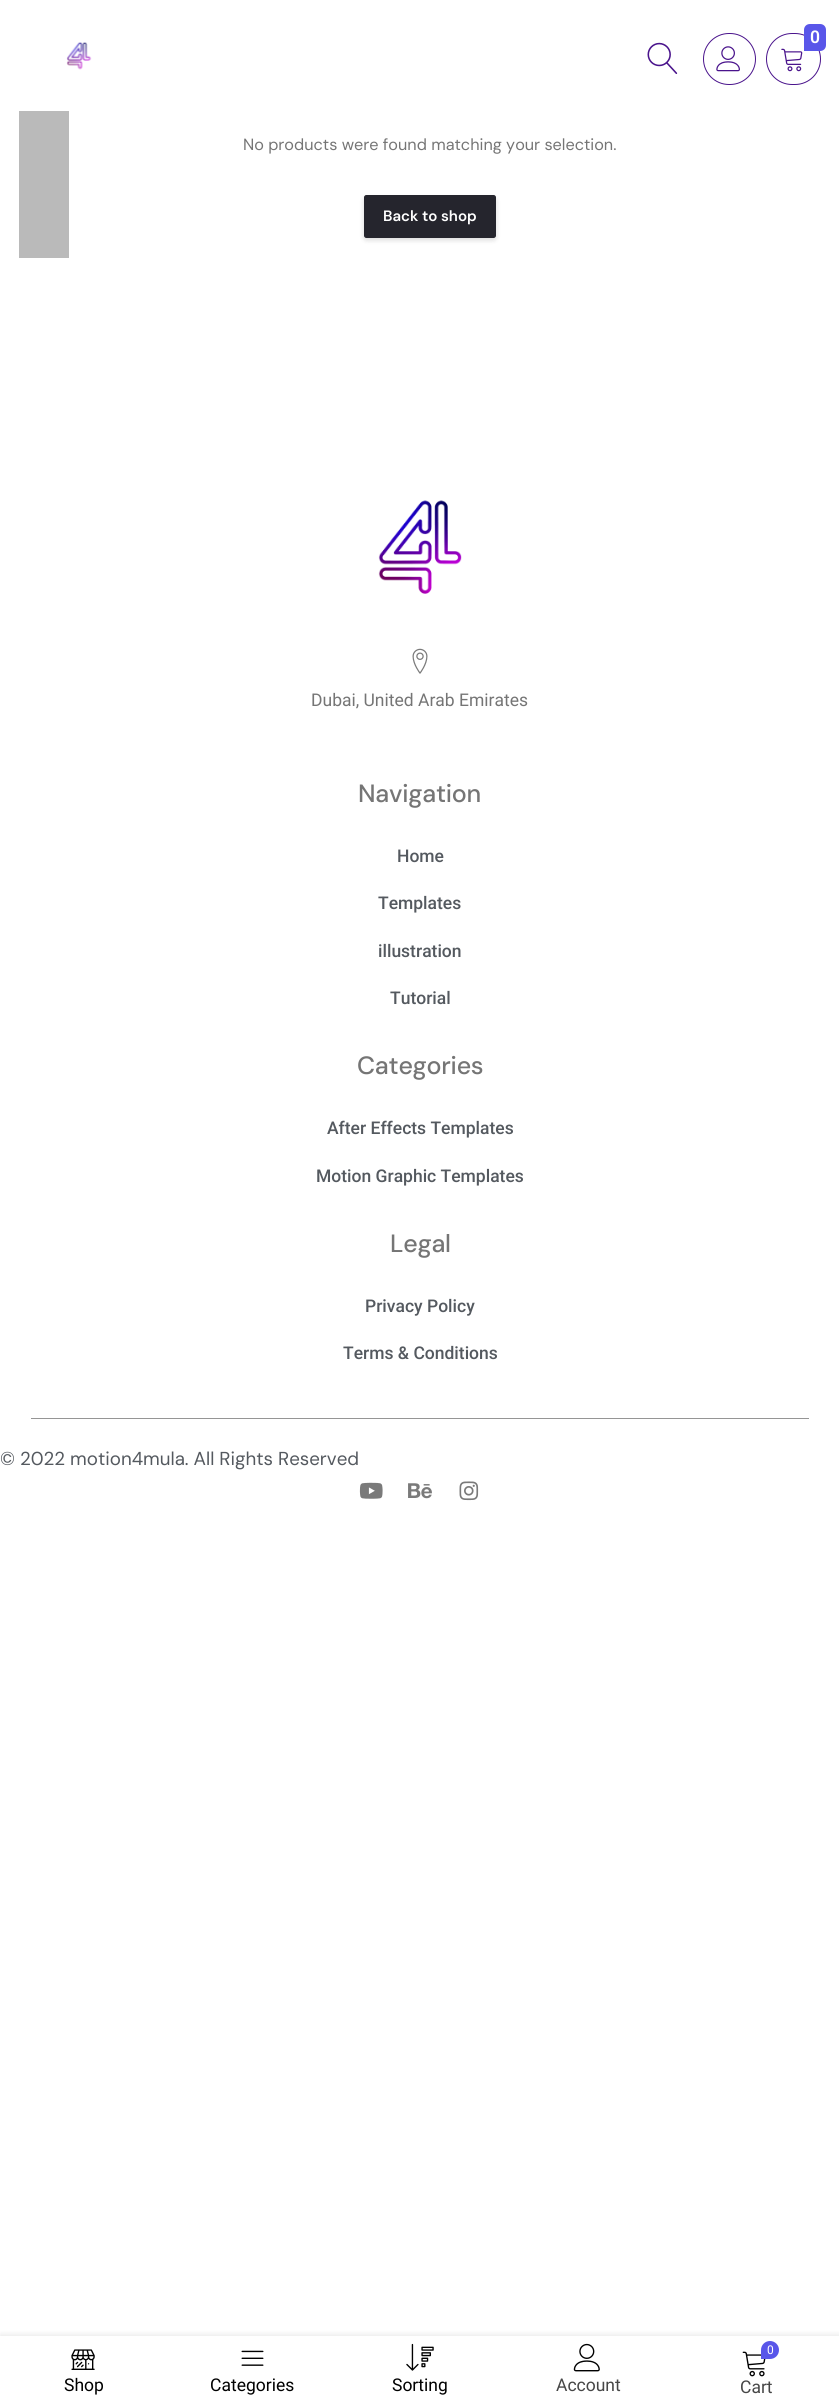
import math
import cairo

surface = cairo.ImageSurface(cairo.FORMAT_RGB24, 839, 2405)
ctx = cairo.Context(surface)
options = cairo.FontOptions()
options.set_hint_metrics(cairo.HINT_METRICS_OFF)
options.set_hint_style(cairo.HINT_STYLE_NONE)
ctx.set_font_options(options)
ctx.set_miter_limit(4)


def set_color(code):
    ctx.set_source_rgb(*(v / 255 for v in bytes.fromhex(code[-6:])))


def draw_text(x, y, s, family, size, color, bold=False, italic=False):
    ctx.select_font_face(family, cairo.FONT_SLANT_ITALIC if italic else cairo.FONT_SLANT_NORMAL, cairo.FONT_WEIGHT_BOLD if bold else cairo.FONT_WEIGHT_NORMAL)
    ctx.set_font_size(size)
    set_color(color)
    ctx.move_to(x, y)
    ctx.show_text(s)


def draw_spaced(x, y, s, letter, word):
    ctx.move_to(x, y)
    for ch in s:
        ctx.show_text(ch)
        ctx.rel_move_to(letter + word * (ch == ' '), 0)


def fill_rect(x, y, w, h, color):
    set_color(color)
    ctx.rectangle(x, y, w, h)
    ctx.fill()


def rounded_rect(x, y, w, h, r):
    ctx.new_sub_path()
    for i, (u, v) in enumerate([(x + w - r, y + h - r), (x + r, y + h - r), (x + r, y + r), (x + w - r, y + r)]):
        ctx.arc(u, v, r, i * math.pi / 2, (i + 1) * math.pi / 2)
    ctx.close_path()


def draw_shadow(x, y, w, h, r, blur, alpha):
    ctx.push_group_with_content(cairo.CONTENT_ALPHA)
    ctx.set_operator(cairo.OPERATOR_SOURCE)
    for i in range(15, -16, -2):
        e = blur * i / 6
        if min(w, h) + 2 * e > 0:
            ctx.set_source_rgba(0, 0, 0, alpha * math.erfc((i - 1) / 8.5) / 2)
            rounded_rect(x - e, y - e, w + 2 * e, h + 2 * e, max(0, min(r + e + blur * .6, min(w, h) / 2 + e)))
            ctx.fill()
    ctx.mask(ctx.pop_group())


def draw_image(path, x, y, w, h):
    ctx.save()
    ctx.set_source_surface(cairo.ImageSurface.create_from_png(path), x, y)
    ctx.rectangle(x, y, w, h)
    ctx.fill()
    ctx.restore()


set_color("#ffffff")
ctx.paint()
draw_image("assets/img1.png", 647, 42, 31, 32)
rounded_rect(703.5, 33.5, 52, 51, 25.5)
set_color("#4a148c")
ctx.set_line_width(1)
ctx.stroke()
draw_image("assets/img2.png", 716, 46, 24, 26)
rounded_rect(766.5, 33.5, 54, 51, 25.5)
ctx.stroke()
set_color("#5956e9")
ctx.new_path()
ctx.move_to(810, 24)
ctx.line_to(820, 24)
ctx.curve_to(823.5, 24, 826, 26.5, 826, 30)
ctx.line_to(826, 45)
ctx.curve_to(826, 48.5, 823.5, 51, 820, 51)
ctx.line_to(804, 51)
ctx.line_to(804, 30)
ctx.curve_to(804, 26.5, 806.5, 24, 810, 24)
ctx.close_path()
ctx.fill()
draw_text(810, 43, "0", "Roboto SemiBold", 17.5, "#ffffff")
draw_image("assets/img3.png", 781, 48, 22, 24)
draw_image("assets/img4.png", 66, 42, 26, 28)
fill_rect(19, 111, 50, 147, "#bababa")
draw_text(243, 150, "No products were found matching your selection.", "DM Sans", 16.25, "#757575")
set_color("#000000")
draw_shadow(364, 198, 132, 42, 2.5, 2.5, 0.15)
set_color("#25252d")
rounded_rect(364.5, 195.5, 131, 42, 2)
ctx.fill_preserve()
ctx.stroke()
draw_text(383, 221, "Back to shop", "DM Sans SemiBold", 15, "#ffffff")
draw_image("assets/img5.png", 378, 500, 84, 94)
draw_image("assets/img6.png", 412, 648, 16, 26)
draw_text(311, 706, "Dubai, United Arab Emirates", "Roboto", 17.5, "#757575")
ctx.select_font_face("DM Sans Medium")
ctx.set_font_size(25)
draw_spaced(358, 802, "Navigation", -0.25, 0)
draw_text(397, 862, "Home", "Roboto Medium", 17.5, "#54595f")
draw_text(378, 909, "Templates", "Roboto Medium", 17.5, "#54595f")
draw_text(378, 957, "illustration", "Roboto Medium", 17.5, "#54595f")
draw_text(390, 1004, "Tutorial", "Roboto Medium", 17.5, "#54595f")
ctx.select_font_face("DM Sans Medium")
ctx.set_font_size(25)
set_color("#757575")
draw_spaced(357, 1074, "Categories", -0.25, 0)
draw_text(327, 1134, "After Effects Templates", "Roboto Medium", 17.5, "#54595f")
draw_text(316, 1182, "Motion Graphic Templates", "Roboto Medium", 17.5, "#54595f")
ctx.select_font_face("DM Sans Medium")
ctx.set_font_size(25)
set_color("#757575")
draw_spaced(390, 1252, "Legal", -0.25, 0)
draw_text(365, 1312, "Privacy Policy", "Roboto Medium", 17.5, "#54595f")
draw_text(343, 1359, "Terms & Conditions", "Roboto Medium", 17.5, "#54595f")
fill_rect(31, 1418, 778, 1, "#959595")
draw_text(0, 1465, "© 2022 motion4mula. All Rights Reserved", "DM Sans", 18.75, "#54595f")
draw_image("assets/img7.png", 359, 1482, 24, 17)
draw_image("assets/img8.png", 408, 1483, 24, 16)
draw_image("assets/img9.png", 459, 1481, 20, 20)
set_color("#000000")
draw_shadow(0, 2334, 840, 69, 0, 2.5, 0.08)
fill_rect(0, 2336, 839, 69, "#ffffff")
draw_image("assets/img10.png", 71, 2349, 24, 21)
draw_text(64, 2391, "Shop", "Roboto", 17.5, "#000000")
draw_image("assets/img11.png", 241, 2350, 23, 16)
draw_text(210, 2391, "Categories", "Roboto", 17.5, "#000000")
draw_image("assets/img12.png", 406, 2343, 28, 28)
draw_text(392, 2391, "Sorting", "Roboto", 17.5, "#000000")
draw_image("assets/img13.png", 573, 2343, 27, 29)
draw_text(556, 2391, "Account", "Roboto", 17.5, "#464646")
draw_image("assets/img14.png", 742, 2351, 24, 26)
set_color("#5956e9")
ctx.new_path()
ctx.move_to(770, 2341)
ctx.curve_to(775, 2341, 779, 2345, 779, 2350)
ctx.curve_to(779, 2355, 775, 2359, 770, 2359)
ctx.line_to(761, 2359)
ctx.line_to(761, 2350)
ctx.curve_to(761, 2345, 765, 2341, 770, 2341)
ctx.close_path()
ctx.fill()
draw_text(767, 2354, "0", "Roboto", 12, "#ffffff")
draw_text(740, 2393, "Cart", "Roboto", 17.5, "#464646")
surface.write_to_png("output.png")
